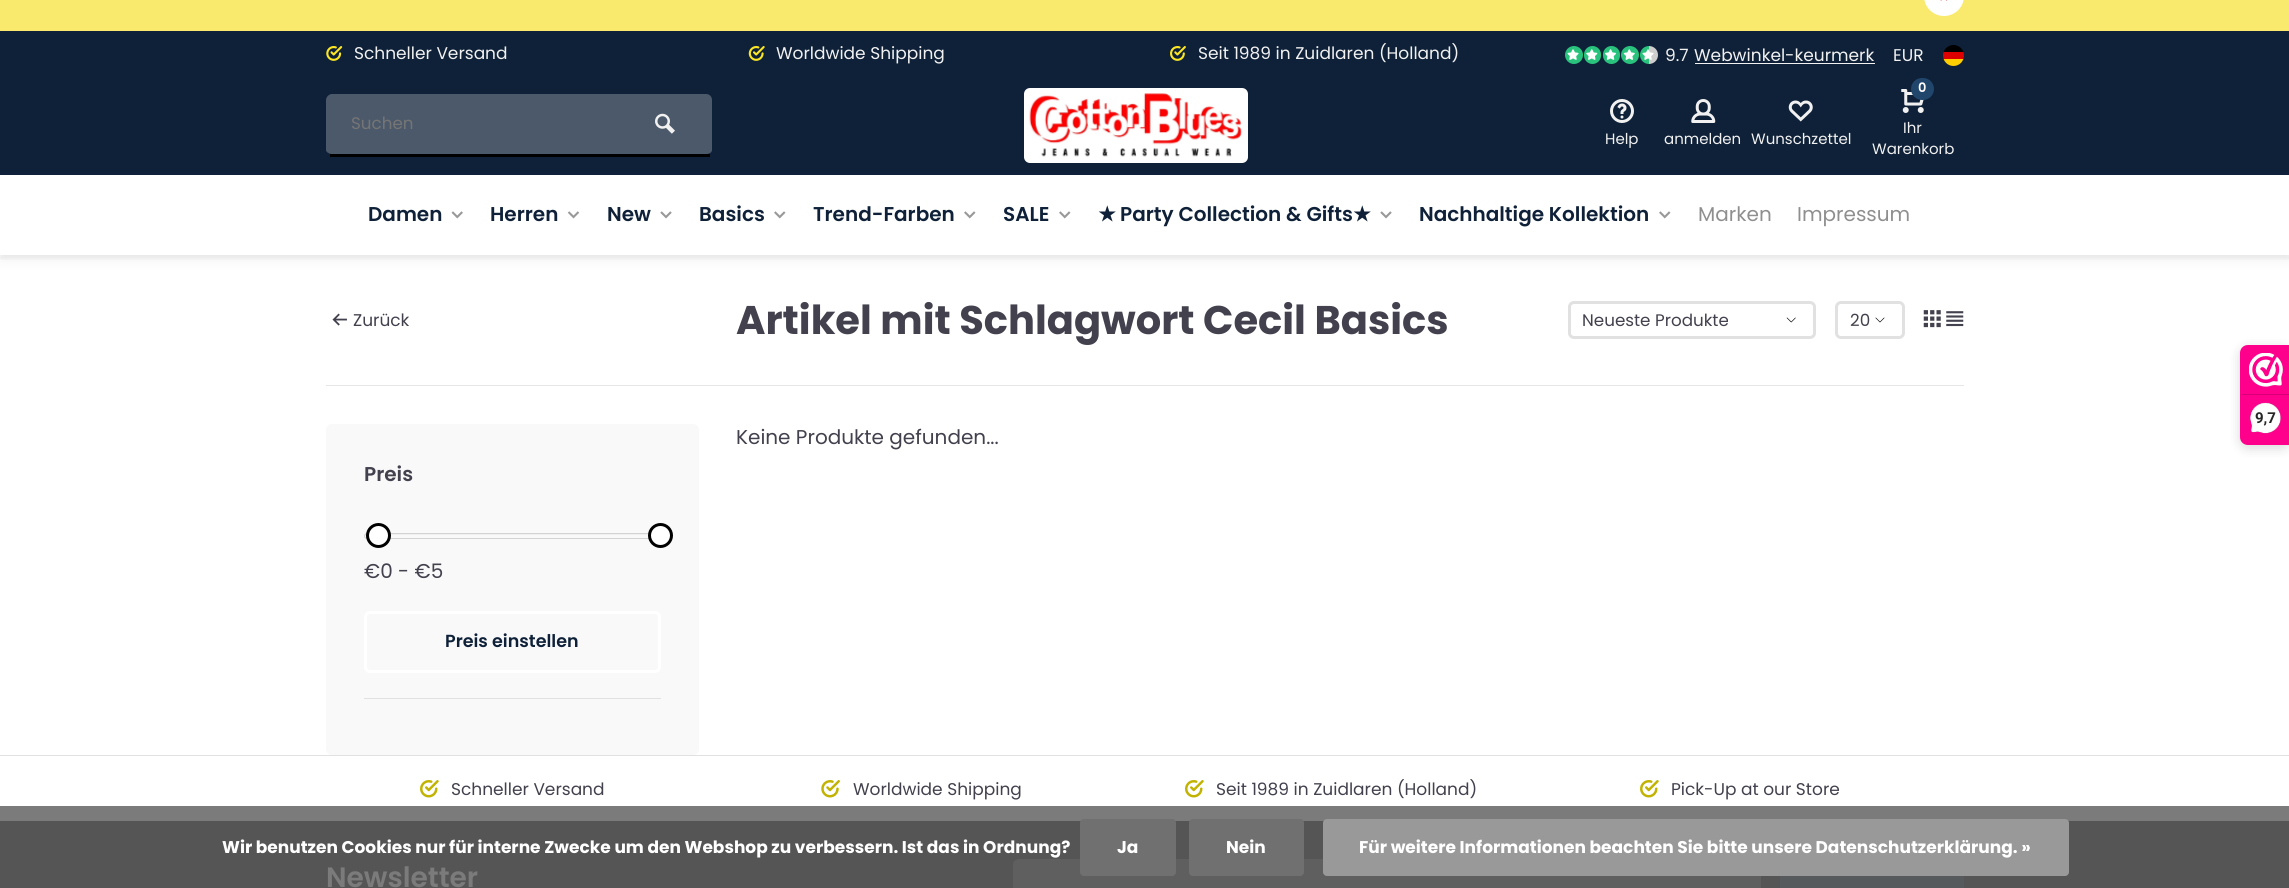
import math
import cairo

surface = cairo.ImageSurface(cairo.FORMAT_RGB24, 2289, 888)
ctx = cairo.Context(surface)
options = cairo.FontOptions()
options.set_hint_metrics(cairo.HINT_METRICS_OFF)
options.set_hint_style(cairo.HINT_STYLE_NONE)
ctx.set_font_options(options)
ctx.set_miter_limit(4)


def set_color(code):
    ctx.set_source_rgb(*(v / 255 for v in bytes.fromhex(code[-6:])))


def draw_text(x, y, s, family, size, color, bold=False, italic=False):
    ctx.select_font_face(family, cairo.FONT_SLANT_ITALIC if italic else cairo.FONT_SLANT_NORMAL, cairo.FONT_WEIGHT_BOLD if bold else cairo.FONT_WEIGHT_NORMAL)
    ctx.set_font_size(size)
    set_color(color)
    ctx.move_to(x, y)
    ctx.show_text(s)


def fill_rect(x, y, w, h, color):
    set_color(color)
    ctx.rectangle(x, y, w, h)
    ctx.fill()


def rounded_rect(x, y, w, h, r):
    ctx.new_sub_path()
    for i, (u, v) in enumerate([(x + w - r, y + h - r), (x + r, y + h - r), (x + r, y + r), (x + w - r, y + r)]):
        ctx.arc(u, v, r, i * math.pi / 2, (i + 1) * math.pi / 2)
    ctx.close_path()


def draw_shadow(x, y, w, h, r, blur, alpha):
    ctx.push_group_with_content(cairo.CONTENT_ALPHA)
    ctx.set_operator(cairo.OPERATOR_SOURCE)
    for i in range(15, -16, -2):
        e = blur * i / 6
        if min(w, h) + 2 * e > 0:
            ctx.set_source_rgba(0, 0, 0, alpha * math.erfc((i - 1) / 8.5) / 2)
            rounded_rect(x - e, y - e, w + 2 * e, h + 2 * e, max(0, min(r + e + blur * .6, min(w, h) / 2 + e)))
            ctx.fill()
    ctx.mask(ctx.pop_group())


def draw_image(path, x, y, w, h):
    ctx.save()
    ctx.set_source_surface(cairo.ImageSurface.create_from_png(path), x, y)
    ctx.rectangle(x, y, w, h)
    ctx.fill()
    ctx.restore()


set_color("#ffffff")
ctx.paint()
fill_rect(0, 806, 2289, 15, "#7b7b7b")
fill_rect(0, 0, 2289, 31, "#f9ea6e")
set_color("#ffffff")
rounded_rect(1924, -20, 40, 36, 20)
ctx.fill()
draw_image("assets/img1.png", 1940, 0, 7, 1)
set_color("#000000")
draw_shadow(0, 81, 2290, 180, 0, 6, 0.05)
fill_rect(0, 75, 2289, 100, "#0f2138")
ctx.save()
ctx.rectangle(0, 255, 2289, 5)
ctx.clip()
set_color("#000000")
draw_shadow(0, 79, 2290, 180, 0, 2.5, 0.05)
ctx.restore()
fill_rect(0, 31, 2289, 44, "#0f2138")
draw_image("assets/img2.png", 326, 46, 17, 15)
draw_text(354, 59, "Schneller Versand", "Poppins", 17, "#f1f1f1")
draw_image("assets/img3.png", 748, 46, 17, 15)
draw_text(776, 59, "Worldwide Shipping", "Poppins", 17, "#f1f1f1")
draw_image("assets/img4.png", 1170, 46, 16, 15)
draw_text(1198, 59, "Seit 1989 in Zuidlaren (Holland)", "Poppins", 17, "#f1f1f1")
set_color("#2ac37d")
ctx.new_path()
ctx.arc(1574, 55, 9, 0, 2 * math.pi)
ctx.fill()
draw_image("assets/img5.png", 1567, 49, 12, 11)
rounded_rect(1584, 46, 17, 18, 8.5)
ctx.fill()
draw_image("assets/img6.png", 1586, 49, 12, 11)
rounded_rect(1603, 46, 17, 18, 8.5)
ctx.fill()
draw_image("assets/img7.png", 1605, 49, 11, 11)
ctx.arc(1630, 55, 9, 0, 2 * math.pi)
ctx.fill()
draw_image("assets/img8.png", 1623, 49, 12, 11)
ctx.new_path()
ctx.move_to(1649, 46)
ctx.line_to(1649, 64)
ctx.curve_to(1644, 64, 1640, 60, 1640, 55)
ctx.curve_to(1640, 50, 1644, 46, 1649, 46)
ctx.close_path()
ctx.fill()
set_color("#cecece")
ctx.new_path()
ctx.move_to(1649, 46)
ctx.curve_to(1654, 46, 1658, 50, 1658, 55)
ctx.curve_to(1658, 60, 1654, 64, 1649, 64)
ctx.close_path()
ctx.fill()
draw_image("assets/img9.png", 1642, 49, 12, 11)
draw_text(1665, 61, "9.7", "Poppins", 17, "#f1f1f1")
draw_text(1694, 61, "Webwinkel-keurmerk", "Poppins", 17, "#f1f1f1")
fill_rect(1695, 63, 180, 1, "#f1f1f1")
draw_text(1893, 61, "EUR", "Poppins", 17, "#f1f1f1")
ctx.save()
rounded_rect(1943, 45, 21, 21, 10.5)
ctx.clip()
fill_rect(1943, 59, 21, 7, "#ffce00")
fill_rect(1943, 45, 21, 7, "#000000")
fill_rect(1943, 52, 21, 7, "#dd0000")
ctx.restore()
set_color("#4b596a")
ctx.new_path()
ctx.move_to(332, 94)
ctx.line_to(618, 94)
ctx.line_to(618, 154)
ctx.line_to(332, 154)
ctx.curve_to(329, 154, 326, 152, 326, 150)
ctx.line_to(326, 100)
ctx.curve_to(326, 97, 329, 94, 332, 94)
ctx.close_path()
ctx.fill()
fill_rect(330, 154, 380, 3, "#000000")
draw_text(351, 129, "Suchen", "Poppins", 16.75, "#757575")
set_color("#4b596a")
ctx.new_path()
ctx.move_to(618, 94)
ctx.line_to(706, 94)
ctx.curve_to(710, 94, 712, 97, 712, 100)
ctx.line_to(712, 150)
ctx.curve_to(712, 152, 710, 154, 706, 154)
ctx.line_to(618, 154)
ctx.close_path()
ctx.fill()
draw_image("assets/img10.png", 655, 113, 20, 21)
set_color("#ffffff")
rounded_rect(1024, 88, 224, 75, 6)
ctx.fill()
draw_image("assets/img11.png", 1029, 93, 213, 64)
draw_image("assets/img12.png", 1610, 99, 24, 24)
draw_text(1605, 144, "Help", "Poppins", 15, "#f1f1f1")
draw_image("assets/img13.png", 1691, 99, 25, 24)
draw_text(1664, 144, "anmelden", "Poppins", 15, "#f1f1f1")
draw_image("assets/img14.png", 1788, 100, 25, 22)
draw_text(1751, 144, "Wunschzettel", "Poppins", 15, "#f1f1f1")
draw_image("assets/img15.png", 1901, 89, 23, 24)
set_color("#20466b")
rounded_rect(1911, 78, 23, 22, 11)
ctx.fill()
draw_text(1918, 92, "0", "Poppins SemiBold", 13, "#ffffff")
draw_text(1903, 133, "Ihr", "Poppins", 15, "#f1f1f1")
draw_text(1872, 154, "Warenkorb", "Poppins", 15, "#f1f1f1")
fill_rect(0, 175, 2289, 80, "#ffffff")
draw_text(368, 221, "Damen", "Poppins SemiBold", 20, "#0f2138")
draw_image("assets/img16.png", 451, 211, 12, 8)
draw_text(490, 221, "Herren", "Poppins SemiBold", 20, "#0f2138")
draw_image("assets/img17.png", 567, 211, 13, 8)
draw_text(607, 221, "New", "Poppins SemiBold", 20, "#0f2138")
draw_image("assets/img18.png", 660, 211, 12, 8)
draw_text(699, 221, "Basics", "Poppins SemiBold", 20, "#0f2138")
draw_image("assets/img19.png", 774, 211, 12, 8)
draw_text(813, 221, "Trend-Farben", "Poppins SemiBold", 20, "#0f2138")
draw_image("assets/img19.png", 964, 211, 12, 8)
draw_text(1003, 221, "SALE", "Poppins SemiBold", 20, "#0f2138")
draw_image("assets/img19.png", 1059, 211, 12, 8)
draw_text(1098, 221, "★", "DejaVu Sans", 20, "#0f2138", bold=True)
draw_text(1120, 221, "Party Collection & Gifts", "Poppins SemiBold", 20, "#0f2138")
draw_text(1353, 221, "★", "DejaVu Sans", 20, "#0f2138", bold=True)
draw_image("assets/img18.png", 1380, 211, 12, 8)
draw_text(1419, 221, "Nachhaltige Kollektion", "Poppins SemiBold", 20, "#0f2138")
draw_image("assets/img19.png", 1659, 211, 12, 8)
draw_text(1698, 221, "Marken", "Poppins", 20, "#8f8f8f")
draw_text(1797, 221, "Impressum", "Poppins", 20, "#8f8f8f")
fill_rect(326, 385, 1638, 1, "#e6e6e6")
draw_image("assets/img20.png", 332, 313, 15, 13)
draw_text(353, 326, "Zurück", "Poppins", 17, "#42414d")
draw_text(736, 334, "Artikel mit Schlagwort Cecil Basics", "Poppins", 40, "#42414d", bold=True)
draw_image("assets/img21.png", 1786, 317, 10, 6)
rounded_rect(1569.5, 302.5, 245, 35, 4.5)
set_color("#e1e1e1")
ctx.set_line_width(3)
ctx.stroke()
draw_text(1582, 326, "Neueste Produkte", "Poppins", 16.75, "#42414d")
draw_image("assets/img22.png", 1875, 317, 10, 6)
rounded_rect(1836.5, 302.5, 67, 35, 4.5)
set_color("#e1e1e1")
ctx.stroke()
draw_text(1850, 326, "20", "Poppins", 16.75, "#42414d")
draw_image("assets/img23.png", 1923, 310, 18, 18)
draw_image("assets/img24.png", 1946, 311, 18, 16)
draw_text(736, 444, "Keine Produkte gefunden...", "Poppins", 20, "#42414d")
set_color("#f9f9fa")
rounded_rect(326, 424, 373, 331, 6)
ctx.fill()
fill_rect(364, 698, 297, 1, "#e1e1e1")
draw_text(364, 481, "Preis", "Poppins SemiBold", 20, "#42414d")
set_color("#f0f0f0")
ctx.new_path()
ctx.move_to(367, 535)
ctx.line_to(658, 535)
ctx.line_to(660, 537)
ctx.curve_to(661, 536, 660, 534, 658, 534)
ctx.line_to(367, 534)
ctx.line_to(365, 535)
ctx.line_to(365, 536)
ctx.close_path()
ctx.fill()
rounded_rect(364.5, 533.5, 296, 5, 2.5)
set_color("#d3d3d3")
ctx.set_line_width(1)
ctx.stroke()
set_color("#ffffff")
ctx.arc(378.5, 535.5, 11, 0, 2 * math.pi)
ctx.fill_preserve()
set_color("#000000")
ctx.set_line_width(3)
ctx.stroke()
set_color("#ffffff")
ctx.arc(660.5, 535.5, 11, 0, 2 * math.pi)
ctx.fill_preserve()
set_color("#000000")
ctx.stroke()
draw_text(364, 578, "€0 - €5", "Poppins", 20, "#42414d")
rounded_rect(365.5, 612.5, 294, 59, 4.5)
set_color("#ffffff")
ctx.stroke()
draw_text(445, 647, "Preis einstellen", "Poppins SemiBold", 17.5, "#0f2138")
fill_rect(0, 755, 2289, 1, "#e1e1e1")
draw_image("assets/img25.png", 420, 780, 19, 18)
draw_text(451, 795, "Schneller Versand", "Poppins", 17, "#42414d")
draw_image("assets/img26.png", 821, 780, 19, 18)
draw_text(853, 795, "Worldwide Shipping", "Poppins", 17, "#42414d")
draw_image("assets/img25.png", 1185, 780, 19, 18)
draw_text(1216, 795, "Seit 1989 in Zuidlaren (Holland)", "Poppins", 17, "#42414d")
draw_image("assets/img25.png", 1640, 780, 19, 18)
draw_text(1671, 795, "Pick-Up at our Store", "Poppins", 17, "#42414d")
fill_rect(0, 821, 2289, 67, "#555555")
draw_text(326, 887, "Newsletter", "Poppins SemiBold", 28, "#7b7b7b")
set_color("#5f5f5f")
rounded_rect(1013, 859, 748, 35, 6)
ctx.fill()
fill_rect(1783, 876, 178, 12, "#575a5d")
ctx.rectangle(1781.5, 860.5, 181, 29)
ctx.stroke()
set_color("#000000")
draw_shadow(2240, 348, 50, 100, 8, 6, 0.15)
set_color("#fe008c")
ctx.new_path()
ctx.move_to(2248, 345)
ctx.line_to(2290, 345)
ctx.line_to(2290, 445)
ctx.line_to(2248, 445)
ctx.curve_to(2243.5, 445, 2240, 441.5, 2240, 437)
ctx.line_to(2240, 353)
ctx.curve_to(2240, 348.5, 2243.5, 345, 2248, 345)
ctx.close_path()
ctx.fill()
draw_image("assets/img27.png", 2249, 353, 34, 34)
fill_rect(2241, 394, 48, 1, "#d80077")
draw_image("assets/img28.png", 2250, 402, 31, 32)
draw_text(2255, 423, "9,7", "Roboto", 15, "#272626", bold=True)
draw_text(222, 853, "Wir benutzen Cookies nur für interne Zwecke um den Webshop zu verbessern. Ist das in Ordnung?", "Poppins", 17, "#ffffff", bold=True)
set_color("#707070")
rounded_rect(1080, 819, 96, 57, 4)
ctx.fill()
draw_text(1117, 853, "Ja", "Poppins", 17, "#ffffff", bold=True)
set_color("#707070")
rounded_rect(1189, 819, 115, 57, 4)
ctx.fill()
draw_text(1226, 853, "Nein", "Poppins", 17, "#ffffff", bold=True)
set_color("#999999")
rounded_rect(1323, 819, 746, 57, 4)
ctx.fill()
draw_text(1359, 853, "Für weitere Informationen beachten Sie bitte unsere Datenschutzerklärung. »", "Poppins", 17, "#ffffff", bold=True)
surface.write_to_png("output.png")
